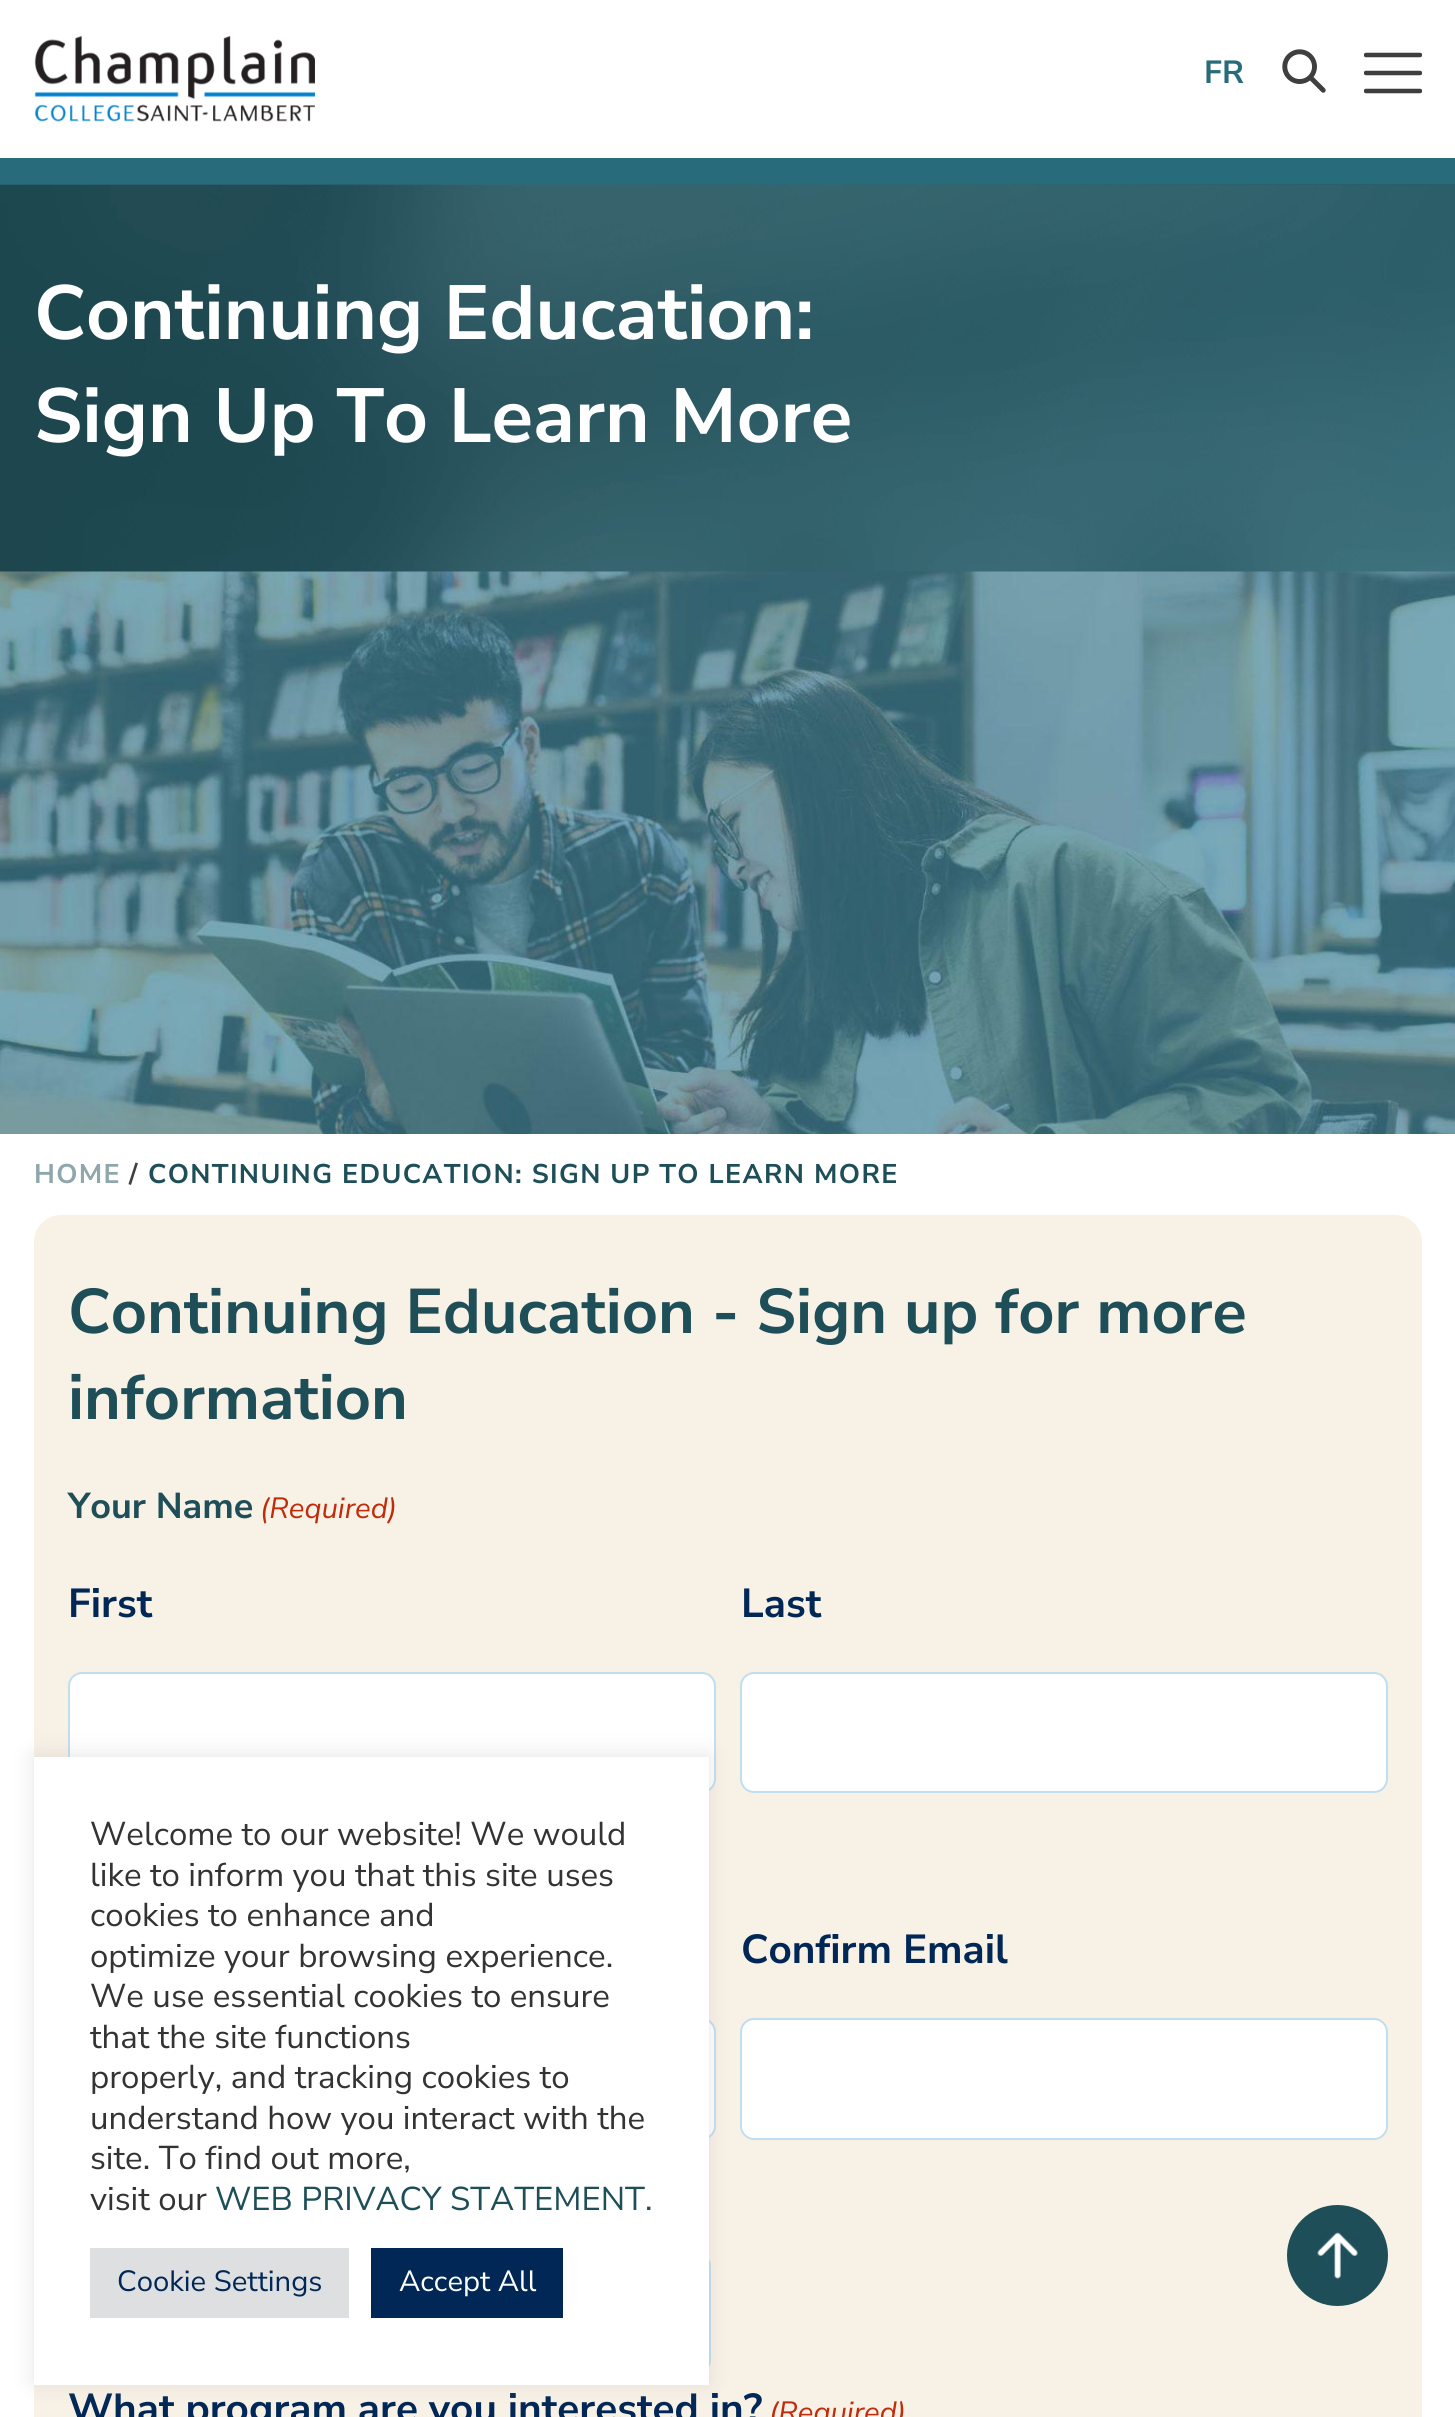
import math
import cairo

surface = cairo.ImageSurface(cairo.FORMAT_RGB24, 1455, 2417)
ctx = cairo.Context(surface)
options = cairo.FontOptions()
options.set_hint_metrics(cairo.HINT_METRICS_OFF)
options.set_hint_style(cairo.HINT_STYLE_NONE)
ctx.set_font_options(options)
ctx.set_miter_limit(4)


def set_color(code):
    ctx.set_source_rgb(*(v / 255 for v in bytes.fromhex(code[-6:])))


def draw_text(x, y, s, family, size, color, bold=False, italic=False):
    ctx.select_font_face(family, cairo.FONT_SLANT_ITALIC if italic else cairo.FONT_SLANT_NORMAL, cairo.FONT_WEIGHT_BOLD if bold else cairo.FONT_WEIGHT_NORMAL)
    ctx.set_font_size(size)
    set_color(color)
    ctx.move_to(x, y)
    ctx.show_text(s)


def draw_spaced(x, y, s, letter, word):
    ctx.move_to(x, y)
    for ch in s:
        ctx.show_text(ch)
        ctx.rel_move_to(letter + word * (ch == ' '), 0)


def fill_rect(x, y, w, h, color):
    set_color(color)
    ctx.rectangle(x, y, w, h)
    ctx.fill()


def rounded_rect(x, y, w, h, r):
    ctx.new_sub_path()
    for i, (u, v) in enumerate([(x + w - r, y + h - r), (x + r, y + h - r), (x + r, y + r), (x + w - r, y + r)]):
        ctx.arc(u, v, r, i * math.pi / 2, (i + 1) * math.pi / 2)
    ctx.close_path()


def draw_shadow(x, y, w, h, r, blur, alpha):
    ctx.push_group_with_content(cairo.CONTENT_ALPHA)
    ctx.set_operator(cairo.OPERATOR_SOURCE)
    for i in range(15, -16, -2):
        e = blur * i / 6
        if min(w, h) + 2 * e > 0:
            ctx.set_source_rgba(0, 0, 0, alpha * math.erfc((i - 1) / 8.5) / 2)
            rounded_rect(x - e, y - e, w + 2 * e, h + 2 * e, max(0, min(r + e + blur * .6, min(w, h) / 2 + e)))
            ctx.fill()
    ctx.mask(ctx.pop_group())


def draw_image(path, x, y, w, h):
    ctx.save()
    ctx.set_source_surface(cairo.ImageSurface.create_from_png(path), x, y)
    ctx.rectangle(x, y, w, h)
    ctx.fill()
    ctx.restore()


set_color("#ffffff")
ctx.paint()
draw_image("assets/img1.png", 34, 35, 281, 87)
draw_text(1204, 83, "FR", "Nunito Sans", 32, "#286b7a", bold=True)
draw_image("assets/img2.png", 1282, 49, 44, 44)
ctx.save()
ctx.rectangle(1364, 52, 58, 43)
ctx.clip()
ctx.new_path()
ctx.move_to(1366, 55)
ctx.line_to(1420, 55)
ctx.move_to(1366, 73)
ctx.line_to(1420, 73)
ctx.move_to(1366, 91)
ctx.line_to(1420, 91)
set_color("#3e3e3e")
ctx.set_line_width(4.5)
ctx.set_line_cap(cairo.LINE_CAP_ROUND)
ctx.stroke()
ctx.restore()
fill_rect(0, 158, 1455, 27, "#286b7a")
draw_image("assets/img3.png", 0, 184, 1455, 388)
draw_text(34, 339, "Continuing Education:", "Nunito Sans", 76.5, "#ffffff", bold=True)
draw_text(34, 442, "Sign Up To Learn More", "Nunito Sans", 76.5, "#ffffff", bold=True)
draw_image("assets/img4.png", 0, 571, 1455, 563)
ctx.set_font_size(27)
set_color("#8fa7ac")
draw_spaced(34, 1183, "HOME", 1.35, 0)
set_color("#404040")
draw_spaced(129, 1183, "/", 1.35, 0)
set_color("#1e4e58")
draw_spaced(148, 1183, "CONTINUING EDUCATION: SIGN UP TO LEARN MORE", 1.35, 0)
set_color("#f8f1e6")
rounded_rect(34, 1215, 1388, 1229, 27)
ctx.fill()
draw_text(68, 1333, "Continuing Education - Sign up for more", "Nunito Sans", 63, "#1e4e58", bold=True)
draw_text(68, 1419, "information", "Nunito Sans", 63, "#1e4e58", bold=True)
draw_text(68, 1518, "Your Name", "Nunito Sans", 36, "#1e4e58", bold=True)
draw_text(260, 1518, "(Required)", "Nunito Sans", 29.25, "#c02b0a", italic=True)
draw_text(68, 1617, "First", "Nunito Sans", 40.5, "#002756", bold=True)
set_color("#ffffff")
rounded_rect(69, 1673, 646, 119, 13)
ctx.fill_preserve()
set_color("#bfdef0")
ctx.stroke()
draw_text(741, 1617, "Last", "Nunito Sans", 40.5, "#002756", bold=True)
set_color("#ffffff")
rounded_rect(741, 1673, 646, 119, 13)
ctx.fill_preserve()
set_color("#bfdef0")
ctx.stroke()
draw_text(741, 1963, "Confirm Email", "Nunito Sans", 40.5, "#002756", bold=True)
set_color("#ffffff")
rounded_rect(741, 2019, 646, 120, 13)
ctx.fill_preserve()
set_color("#bfdef0")
ctx.stroke()
set_color("#ffffff")
rounded_rect(69, 2019, 646, 120, 13)
ctx.fill_preserve()
set_color("#bfdef0")
ctx.stroke()
rounded_rect(69, 2253, 641, 120, 13)
ctx.stroke()
draw_text(68, 2422, "What program are you interested in?", "Nunito Sans", 40.5, "#002756", bold=True)
draw_text(769, 2422, "(Required)", "Nunito Sans", 29.25, "#c02b0a", italic=True)
set_color("#1e4e58")
ctx.new_path()
ctx.arc(1337.5, 2255.5, 50.5, 0, 2 * math.pi)
ctx.fill()
draw_image("assets/img5.png", 1317, 2232, 41, 47)
set_color("#acabab")
draw_shadow(34, 1755, 675, 628, 0, 11, 0.3)
fill_rect(34, 1757, 675, 628, "#ffffff")
draw_text(90, 1845, "Welcome to our website! We would", "Nunito Sans", 33, "#333333")
draw_text(90, 1886, "like to inform you that this site uses", "Nunito Sans", 33, "#333333")
draw_text(90, 1926, "cookies to enhance and", "Nunito Sans", 33, "#333333")
draw_text(90, 1967, "optimize your browsing experience.", "Nunito Sans", 33, "#333333")
draw_text(90, 2007, "We use essential cookies to ensure", "Nunito Sans", 33, "#333333")
draw_text(90, 2048, "that the site functions", "Nunito Sans", 33, "#333333")
draw_text(90, 2088, "properly, and tracking cookies to", "Nunito Sans", 33, "#333333")
draw_text(90, 2129, "understand how you interact with the", "Nunito Sans", 33, "#333333")
draw_text(90, 2169, "site. To find out more,", "Nunito Sans", 33, "#333333")
draw_text(90, 2210, "visit our", "Nunito Sans", 33, "#333333")
draw_text(215, 2210, "WEB PRIVACY STATEMENT.", "Nunito Sans", 33, "#1e4e58")
fill_rect(90, 2248, 259, 70, "#dedfe0")
draw_text(117, 2291, "Cookie Settings", "Nunito Sans", 29.25, "#002756")
fill_rect(371, 2248, 192, 70, "#002756")
draw_text(399, 2291, "Accept All", "Nunito Sans", 29.25, "#ffffff")
surface.write_to_png("output.png")
